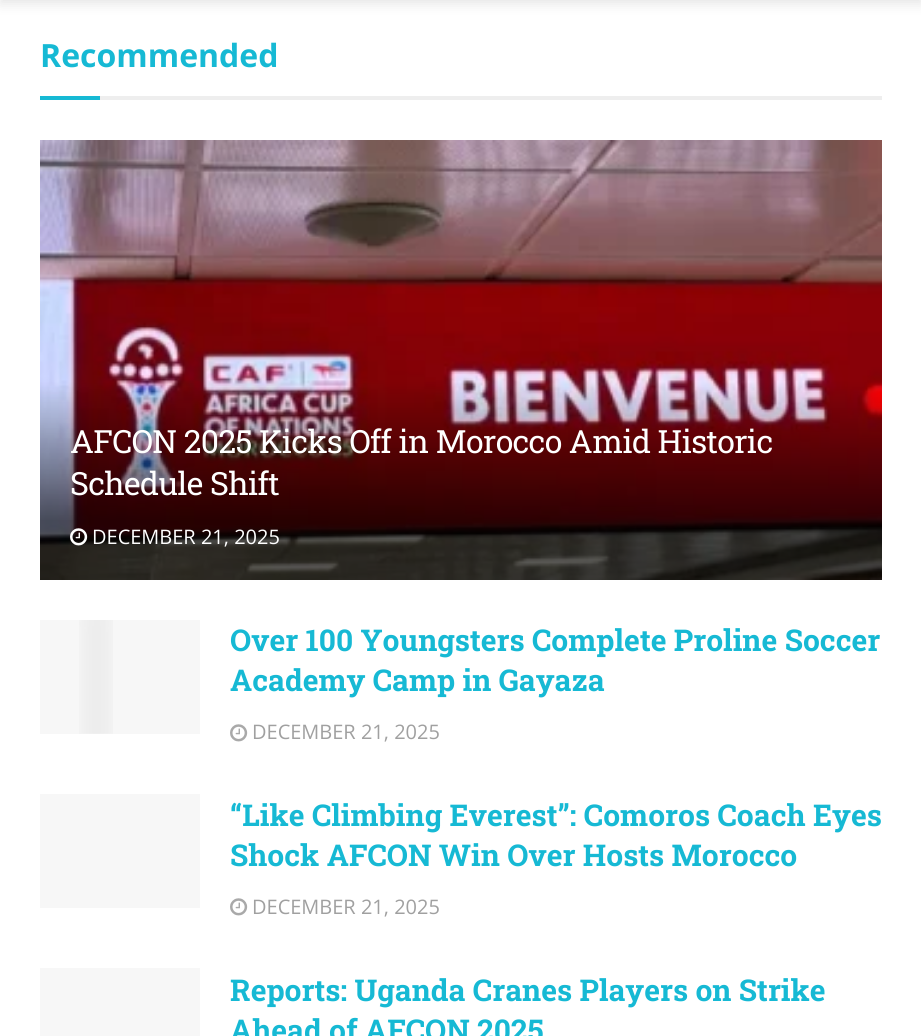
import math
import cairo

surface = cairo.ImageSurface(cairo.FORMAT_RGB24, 921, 1036)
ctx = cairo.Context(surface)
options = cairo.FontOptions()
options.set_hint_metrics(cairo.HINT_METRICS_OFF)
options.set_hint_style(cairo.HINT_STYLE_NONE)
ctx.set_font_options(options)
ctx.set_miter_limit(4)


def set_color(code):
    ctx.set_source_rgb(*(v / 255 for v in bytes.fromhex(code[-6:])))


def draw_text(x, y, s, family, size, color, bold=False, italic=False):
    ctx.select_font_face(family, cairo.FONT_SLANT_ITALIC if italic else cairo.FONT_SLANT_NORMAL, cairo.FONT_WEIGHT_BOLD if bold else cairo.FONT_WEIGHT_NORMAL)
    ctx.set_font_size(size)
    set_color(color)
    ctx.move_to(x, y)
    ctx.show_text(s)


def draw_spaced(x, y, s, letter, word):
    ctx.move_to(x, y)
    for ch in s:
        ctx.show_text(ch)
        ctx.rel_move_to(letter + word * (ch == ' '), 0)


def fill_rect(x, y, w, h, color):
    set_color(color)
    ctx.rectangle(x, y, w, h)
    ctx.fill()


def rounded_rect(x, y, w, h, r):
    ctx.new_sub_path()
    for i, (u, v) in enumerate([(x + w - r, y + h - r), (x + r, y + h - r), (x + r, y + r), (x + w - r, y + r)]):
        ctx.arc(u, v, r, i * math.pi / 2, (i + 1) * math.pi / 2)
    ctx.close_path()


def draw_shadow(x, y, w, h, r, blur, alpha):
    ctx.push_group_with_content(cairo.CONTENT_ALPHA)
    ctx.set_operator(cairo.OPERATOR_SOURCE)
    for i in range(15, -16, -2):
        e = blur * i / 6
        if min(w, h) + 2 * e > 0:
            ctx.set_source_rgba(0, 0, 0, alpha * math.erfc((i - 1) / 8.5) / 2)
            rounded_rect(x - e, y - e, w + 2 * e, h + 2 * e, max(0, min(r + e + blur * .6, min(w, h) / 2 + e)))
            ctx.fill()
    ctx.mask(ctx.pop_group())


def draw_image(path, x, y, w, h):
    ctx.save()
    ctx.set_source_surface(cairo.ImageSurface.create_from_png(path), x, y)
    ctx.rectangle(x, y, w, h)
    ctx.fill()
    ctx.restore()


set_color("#ffffff")
ctx.paint()
set_color("#000000")
draw_shadow(0, -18, 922, 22, 0, 6, 0.1)
fill_rect(100, 96, 782, 4, "#eeeeee")
draw_text(40, 67, "Recommended", "Open Sans", 32, "#16b9d4", bold=True)
fill_rect(40, 96, 60, 4, "#16b9d4")
draw_image("assets/img1.png", 40, 140, 842, 440)
ctx.select_font_face("Roboto Slab")
set_color("#ffffff")
draw_spaced(70, 453, "AFCON 2025 Kicks Off in Morocco Amid Historic", -0.65, 0)
draw_spaced(70, 495, "Schedule Shift", -0.65, 0)
draw_image("assets/img2.png", 70, 528, 18, 18)
draw_text(92, 544, "DECEMBER 21, 2025", "Open Sans", 20, "#ffffff")
fill_rect(40, 620, 160, 114, "#f7f7f7")
draw_image("assets/img3.png", 79, 620, 34, 114)
draw_text(230, 651, "Over 100 Youngsters Complete Proline Soccer", "Roboto Slab", 30, "#16b9d4", bold=True)
draw_text(230, 691, "Academy Camp in Gayaza", "Roboto Slab", 30, "#16b9d4", bold=True)
draw_image("assets/img4.png", 230, 724, 18, 18)
draw_text(252, 739, "DECEMBER 21, 2025", "Open Sans", 20, "#a0a0a0")
fill_rect(40, 794, 160, 114, "#f7f7f7")
draw_text(230, 826, "“Like Climbing Everest”: Comoros Coach Eyes", "Roboto Slab", 30, "#16b9d4", bold=True)
draw_text(230, 866, "Shock AFCON Win Over Hosts Morocco", "Roboto Slab", 30, "#16b9d4", bold=True)
draw_image("assets/img4.png", 230, 898, 18, 18)
draw_text(252, 914, "DECEMBER 21, 2025", "Open Sans", 20, "#a0a0a0")
fill_rect(40, 968, 160, 68, "#f7f7f7")
draw_text(230, 1001, "Reports: Uganda Cranes Players on Strike", "Roboto Slab", 30, "#16b9d4", bold=True)
draw_text(230, 1041, "Ahead of AFCON 2025", "Roboto Slab", 30, "#16b9d4", bold=True)
surface.write_to_png("output.png")
